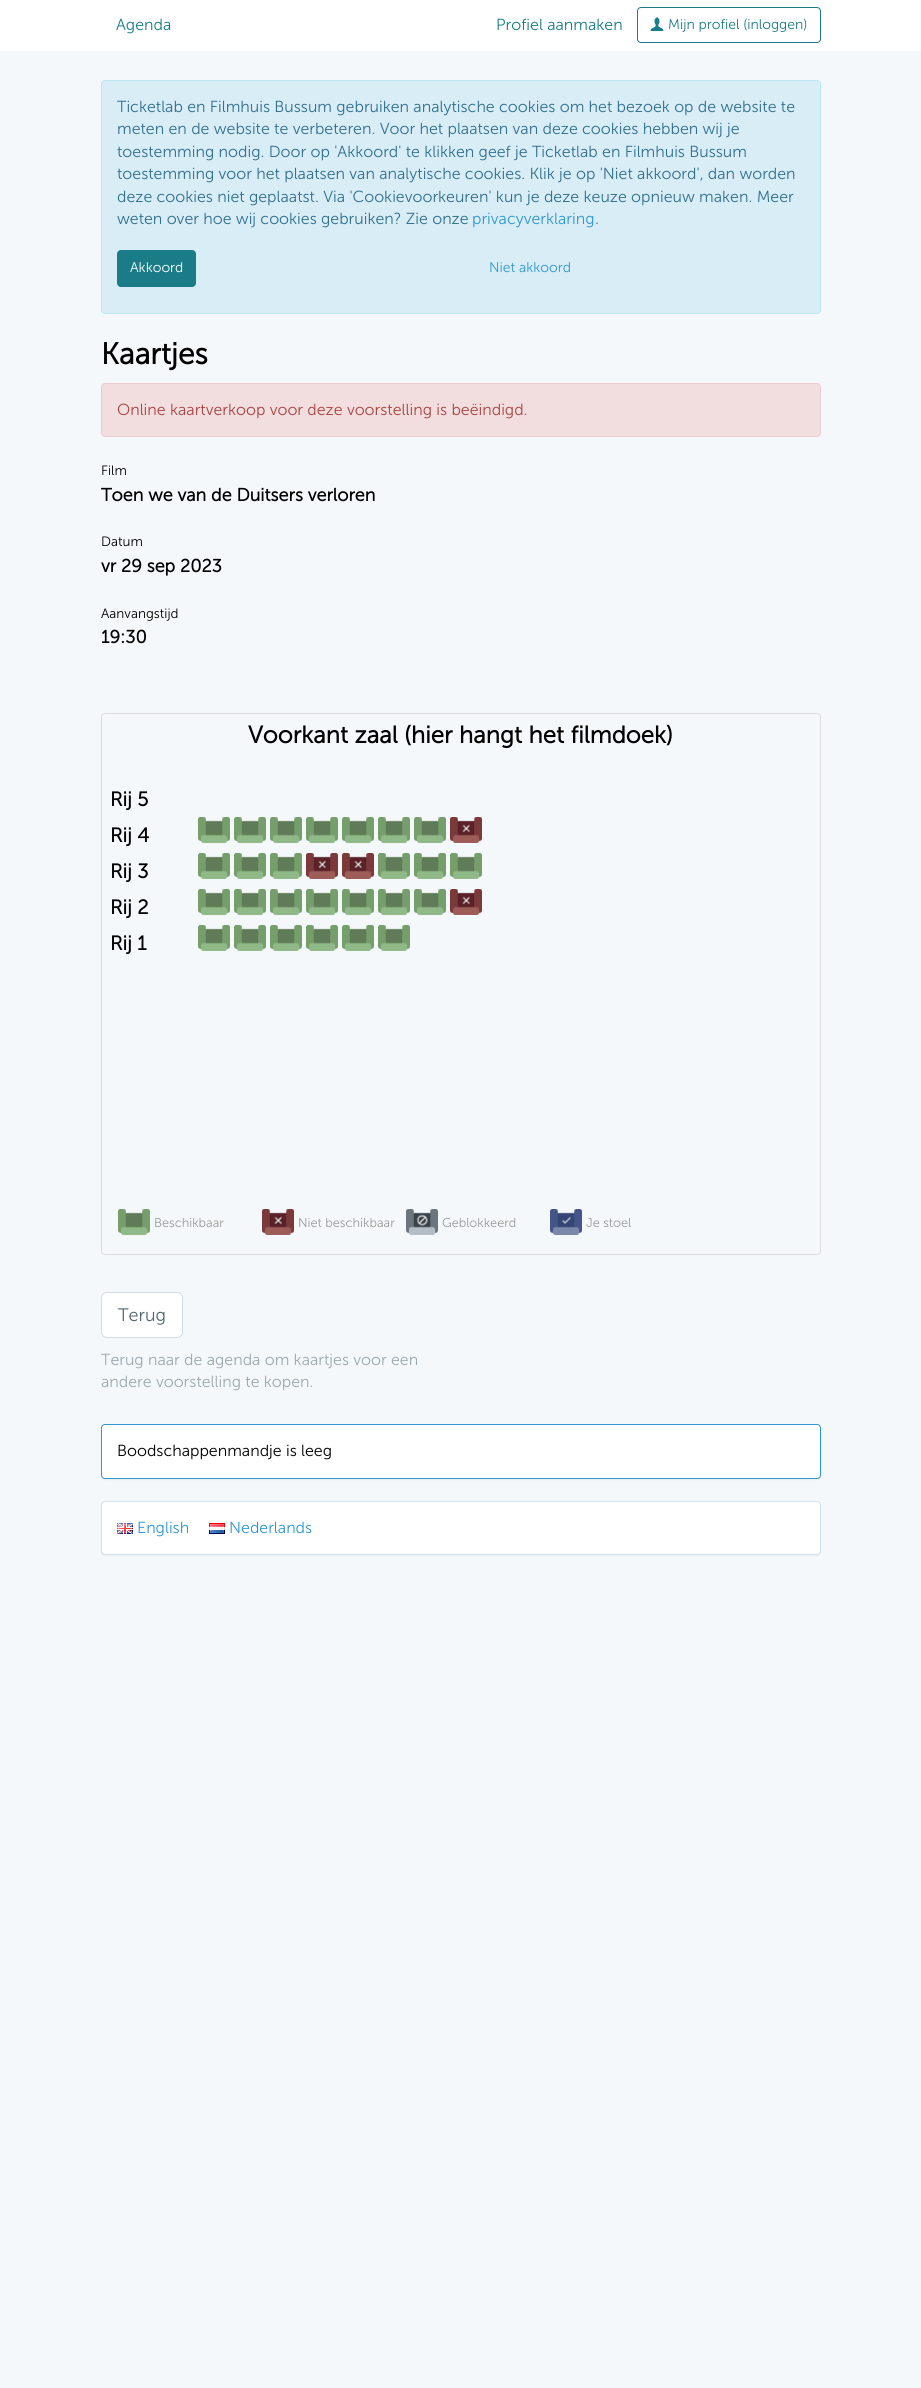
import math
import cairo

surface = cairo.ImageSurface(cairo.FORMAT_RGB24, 921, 2388)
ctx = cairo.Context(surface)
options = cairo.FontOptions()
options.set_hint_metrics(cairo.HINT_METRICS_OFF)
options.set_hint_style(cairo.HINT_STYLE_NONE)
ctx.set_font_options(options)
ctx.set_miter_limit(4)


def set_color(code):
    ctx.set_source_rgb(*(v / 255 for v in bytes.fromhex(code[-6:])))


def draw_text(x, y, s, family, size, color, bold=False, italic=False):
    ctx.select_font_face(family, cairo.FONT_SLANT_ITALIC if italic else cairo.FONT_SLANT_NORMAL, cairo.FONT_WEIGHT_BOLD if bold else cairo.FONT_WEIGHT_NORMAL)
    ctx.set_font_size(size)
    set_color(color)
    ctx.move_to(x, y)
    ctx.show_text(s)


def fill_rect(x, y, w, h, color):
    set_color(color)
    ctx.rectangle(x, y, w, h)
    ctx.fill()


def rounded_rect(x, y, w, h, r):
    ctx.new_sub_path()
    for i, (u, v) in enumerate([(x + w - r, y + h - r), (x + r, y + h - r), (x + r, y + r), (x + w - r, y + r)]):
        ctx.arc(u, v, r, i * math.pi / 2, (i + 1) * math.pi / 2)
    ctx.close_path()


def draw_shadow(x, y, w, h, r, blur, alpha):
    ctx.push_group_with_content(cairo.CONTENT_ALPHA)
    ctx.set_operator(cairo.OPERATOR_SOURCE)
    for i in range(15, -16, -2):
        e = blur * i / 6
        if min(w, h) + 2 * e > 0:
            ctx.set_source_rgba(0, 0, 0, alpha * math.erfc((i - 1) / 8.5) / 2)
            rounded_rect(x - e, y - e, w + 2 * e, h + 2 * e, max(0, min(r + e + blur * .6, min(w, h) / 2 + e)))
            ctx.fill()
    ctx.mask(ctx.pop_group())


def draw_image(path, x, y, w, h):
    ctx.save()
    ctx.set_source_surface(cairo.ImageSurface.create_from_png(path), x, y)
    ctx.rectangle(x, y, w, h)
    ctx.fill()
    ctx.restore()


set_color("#f5f8fa")
ctx.paint()
fill_rect(0, 0, 921, 51, "#ffffff")
draw_text(116, 30, "Agenda", "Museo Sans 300 Light", 16, "#197c86")
draw_text(496, 30, "Profiel aanmaken", "Museo Sans 300 Light", 16, "#197c86")
rounded_rect(637.5, 7.5, 183, 35, 3.5)
ctx.set_line_width(1)
ctx.stroke()
draw_image("assets/img1.png", 650, 17, 14, 14)
draw_text(668, 29, "Mijn profiel (inloggen)", "Museo Sans 300 Light", 14, "#197c86")
set_color("#d9edf7")
rounded_rect(101.5, 80.5, 719, 233, 3.5)
ctx.fill_preserve()
set_color("#bce8f1")
ctx.stroke()
draw_text(117, 112, "Ticketlab en Filmhuis Bussum gebruiken analytische cookies om het bezoek op de website te", "Museo Sans 300 Light", 16, "#31708f")
draw_text(117, 134, "meten en de website te verbeteren. Voor het plaatsen van deze cookies hebben wij je", "Museo Sans 300 Light", 16, "#31708f")
draw_text(117, 157, "toestemming nodig. Door op 'Akkoord' te klikken geef je Ticketlab en Filmhuis Bussum", "Museo Sans 300 Light", 16, "#31708f")
draw_text(117, 179, "toestemming voor het plaatsen van analytische cookies. Klik je op 'Niet akkoord', dan worden", "Museo Sans 300 Light", 16, "#31708f")
draw_text(117, 202, "deze cookies niet geplaatst. Via 'Cookievoorkeuren' kun je deze keuze opnieuw maken. Meer", "Museo Sans 300 Light", 16, "#31708f")
draw_text(117, 224, "weten over hoe wij cookies gebruiken? Zie onze", "Museo Sans 300 Light", 16, "#31708f")
draw_text(472, 224, "privacyverklaring", "Museo Sans 300 Light", 16, "#3097d1")
draw_text(595, 224, ".", "Museo Sans 300 Light", 16, "#31708f")
set_color("#197c86")
rounded_rect(117.5, 250.5, 78, 36, 3.5)
ctx.fill_preserve()
ctx.stroke()
draw_text(130, 272, "Akkoord", "Museo Sans 300 Light", 14, "#ffffff")
draw_text(489, 272, "Niet akkoord", "Museo Sans 300 Light", 14, "#3097d1")
draw_text(101, 364, "Kaartjes", "Museo Sans 300", 30, "#000000", bold=True)
set_color("#f2dede")
rounded_rect(101.5, 383.5, 719, 53, 3.5)
ctx.fill_preserve()
set_color("#ebccd1")
ctx.stroke()
draw_text(117, 415, "Online kaartverkoop voor deze voorstelling is beëindigd.", "Museo Sans 300 Light", 16, "#a94442")
draw_text(101, 475, "Film", "Museo Sans 300 Light", 13.5, "#000000")
draw_text(101, 501, "Toen we van de Duitsers verloren", "Museo Sans 300", 18, "#000000", bold=True)
draw_text(101, 546, "Datum", "Museo Sans 300 Light", 13.5, "#000000")
draw_text(101, 572, "vr 29 sep 2023", "Museo Sans 300", 18, "#000000", bold=True)
draw_text(101, 618, "Aanvangstijd", "Museo Sans 300 Light", 13.5, "#000000")
draw_text(101, 643, "19:30", "Museo Sans 300", 18, "#000000", bold=True)
rounded_rect(101.5, 713.5, 719, 541, 3.5)
set_color("#dddddd")
ctx.stroke()
draw_text(248, 743, "Voorkant zaal (hier hangt het filmdoek)", "Museo Sans 300", 24, "#000000", bold=True)
draw_text(110, 806, "Rij 5", "Museo Sans 300", 20, "#000000", bold=True)
draw_text(110, 842, "Rij 4", "Museo Sans 300", 20, "#000000", bold=True)
draw_image("assets/img2.png", 198, 817, 32, 26)
draw_image("assets/img2.png", 234, 817, 32, 26)
draw_image("assets/img2.png", 270, 817, 32, 26)
draw_image("assets/img2.png", 306, 817, 32, 26)
draw_image("assets/img2.png", 342, 817, 32, 26)
draw_image("assets/img2.png", 378, 817, 32, 26)
draw_image("assets/img2.png", 414, 817, 32, 26)
draw_image("assets/img3.png", 450, 817, 32, 26)
draw_image("assets/img2.png", 198, 853, 32, 26)
draw_image("assets/img2.png", 234, 853, 32, 26)
draw_image("assets/img2.png", 270, 853, 32, 26)
draw_image("assets/img3.png", 306, 853, 32, 26)
draw_image("assets/img3.png", 342, 853, 32, 26)
draw_image("assets/img2.png", 378, 853, 32, 26)
draw_image("assets/img2.png", 414, 853, 32, 26)
draw_image("assets/img2.png", 450, 853, 32, 26)
draw_image("assets/img2.png", 198, 889, 32, 26)
draw_image("assets/img2.png", 234, 889, 32, 26)
draw_image("assets/img2.png", 270, 889, 32, 26)
draw_image("assets/img2.png", 306, 889, 32, 26)
draw_image("assets/img2.png", 342, 889, 32, 26)
draw_image("assets/img2.png", 378, 889, 32, 26)
draw_image("assets/img2.png", 414, 889, 32, 26)
draw_image("assets/img3.png", 450, 889, 32, 26)
draw_image("assets/img2.png", 198, 925, 32, 26)
draw_image("assets/img2.png", 234, 925, 32, 26)
draw_image("assets/img2.png", 270, 925, 32, 26)
draw_image("assets/img2.png", 306, 925, 32, 26)
draw_image("assets/img2.png", 342, 925, 32, 26)
draw_image("assets/img2.png", 378, 925, 32, 26)
draw_text(110, 878, "Rij 3", "Museo Sans 300", 20, "#000000", bold=True)
draw_text(110, 914, "Rij 2", "Museo Sans 300", 20, "#000000", bold=True)
draw_text(110, 950, "Rij 1", "Museo Sans 300", 20, "#000000", bold=True)
draw_image("assets/img2.png", 118, 1209, 32, 26)
draw_text(154, 1227, "Beschikbaar", "Museo Sans 300 Light", 12.75, "#999999")
draw_image("assets/img3.png", 262, 1209, 32, 26)
draw_text(298, 1227, "Niet beschikbaar", "Museo Sans 300 Light", 12.75, "#999999")
draw_image("assets/img4.png", 406, 1209, 32, 26)
draw_text(442, 1227, "Geblokkeerd", "Museo Sans 300 Light", 12.75, "#999999")
draw_image("assets/img5.png", 550, 1209, 32, 26)
draw_text(586, 1227, "Je stoel", "Museo Sans 300 Light", 12.75, "#999999")
set_color("#ffffff")
rounded_rect(101.5, 1292.5, 81, 45, 5.5)
ctx.fill_preserve()
set_color("#d4dbe0")
ctx.stroke()
draw_text(118, 1321, "Terug", "Museo Sans 300 Light", 18, "#536570")
draw_text(101, 1365, "Terug naar de agenda om kaartjes voor een", "Museo Sans 300 Light", 16, "#9da9b0")
draw_text(101, 1387, "andere voorstelling te kopen.", "Museo Sans 300 Light", 16, "#9da9b0")
set_color("#000000")
draw_shadow(101, 1425, 720, 55, 4, 0.5, 0.05)
set_color("#ffffff")
rounded_rect(101.5, 1424.5, 719, 54, 3.5)
ctx.fill_preserve()
set_color("#3097d1")
ctx.stroke()
draw_text(117, 1456, "Boodschappenmandje is leeg", "Museo Sans 300 Light", 16, "#000000")
set_color("#000000")
draw_shadow(101, 1502, 720, 54, 4, 0.5, 0.05)
set_color("#ffffff")
rounded_rect(101.5, 1501.5, 719, 53, 3.5)
ctx.fill_preserve()
set_color("#d3e0e9")
ctx.stroke()
draw_image("assets/img6.png", 117, 1523, 16, 11)
draw_text(137, 1533, "English", "Museo Sans 300 Light", 16, "#3097d1")
draw_image("assets/img7.png", 209, 1523, 16, 11)
draw_text(229, 1533, "Nederlands", "Museo Sans 300 Light", 16, "#3097d1")
surface.write_to_png("output.png")
